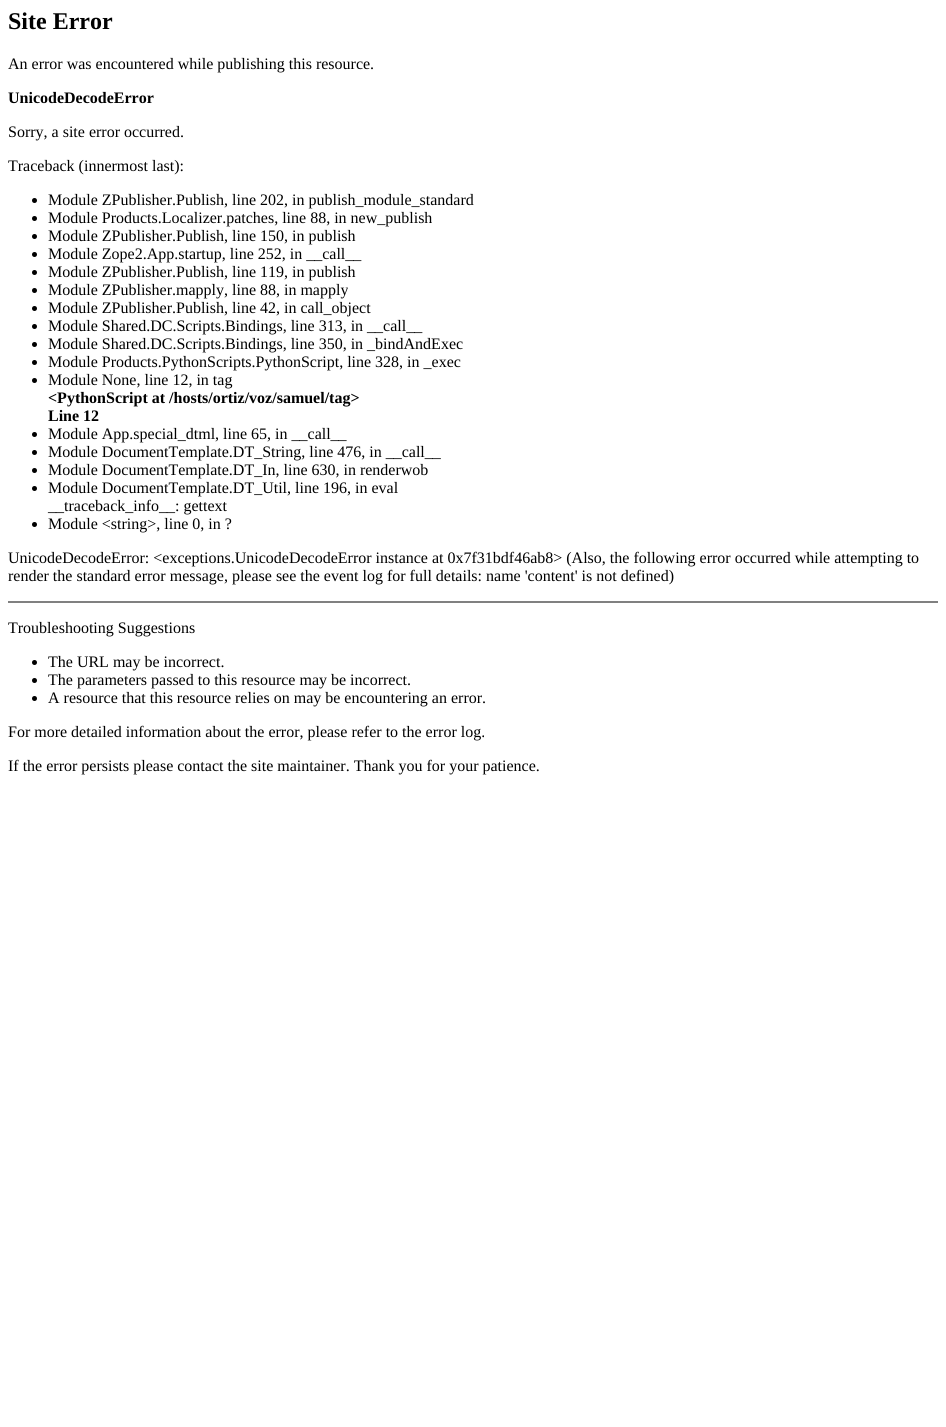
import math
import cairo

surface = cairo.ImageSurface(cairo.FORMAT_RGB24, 946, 1427)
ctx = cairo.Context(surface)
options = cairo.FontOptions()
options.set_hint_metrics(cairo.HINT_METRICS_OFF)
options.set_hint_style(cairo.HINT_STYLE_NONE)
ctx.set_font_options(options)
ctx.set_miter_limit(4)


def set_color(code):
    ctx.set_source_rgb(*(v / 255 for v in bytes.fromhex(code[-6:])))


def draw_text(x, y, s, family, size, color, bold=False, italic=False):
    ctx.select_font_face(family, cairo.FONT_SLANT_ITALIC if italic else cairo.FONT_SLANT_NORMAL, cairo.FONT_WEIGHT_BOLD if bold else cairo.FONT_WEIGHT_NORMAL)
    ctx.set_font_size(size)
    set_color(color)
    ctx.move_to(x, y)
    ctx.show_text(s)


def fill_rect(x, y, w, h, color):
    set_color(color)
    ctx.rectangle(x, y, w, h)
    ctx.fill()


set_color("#ffffff")
ctx.paint()
draw_text(8, 29, "Site Error", "Liberation Serif", 24, "#000000", bold=True)
draw_text(8, 69, "An error was encountered while publishing this resource.", "Liberation Serif", 16, "#000000")
draw_text(8, 103, "UnicodeDecodeError", "Liberation Serif", 16, "#000000", bold=True)
draw_text(8, 137, "Sorry, a site error occurred.", "Liberation Serif", 16, "#000000")
draw_text(8, 171, "Traceback (innermost last):", "Liberation Serif", 16, "#000000")
ctx.new_path()
ctx.arc(34.5, 200.5, 2.5, 0, 2 * math.pi)
ctx.fill()
draw_text(48, 205, "Module ZPublisher.Publish, line 202, in publish_module_standard", "Liberation Serif", 16, "#000000")
ctx.new_path()
ctx.arc(34.5, 218.5, 2.5, 0, 2 * math.pi)
ctx.fill()
draw_text(48, 223, "Module Products.Localizer.patches, line 88, in new_publish", "Liberation Serif", 16, "#000000")
ctx.new_path()
ctx.arc(34.5, 236.5, 2.5, 0, 2 * math.pi)
ctx.fill()
draw_text(48, 241, "Module ZPublisher.Publish, line 150, in publish", "Liberation Serif", 16, "#000000")
ctx.new_path()
ctx.arc(34.5, 254.5, 2.5, 0, 2 * math.pi)
ctx.fill()
draw_text(48, 259, "Module Zope2.App.startup, line 252, in __call__", "Liberation Serif", 16, "#000000")
ctx.new_path()
ctx.arc(34.5, 272.5, 2.5, 0, 2 * math.pi)
ctx.fill()
draw_text(48, 277, "Module ZPublisher.Publish, line 119, in publish", "Liberation Serif", 16, "#000000")
ctx.new_path()
ctx.arc(34.5, 290.5, 2.5, 0, 2 * math.pi)
ctx.fill()
draw_text(48, 295, "Module ZPublisher.mapply, line 88, in mapply", "Liberation Serif", 16, "#000000")
ctx.new_path()
ctx.arc(34.5, 308.5, 2.5, 0, 2 * math.pi)
ctx.fill()
draw_text(48, 313, "Module ZPublisher.Publish, line 42, in call_object", "Liberation Serif", 16, "#000000")
ctx.new_path()
ctx.arc(34.5, 326.5, 2.5, 0, 2 * math.pi)
ctx.fill()
draw_text(48, 331, "Module Shared.DC.Scripts.Bindings, line 313, in __call__", "Liberation Serif", 16, "#000000")
ctx.new_path()
ctx.arc(34.5, 344.5, 2.5, 0, 2 * math.pi)
ctx.fill()
draw_text(48, 349, "Module Shared.DC.Scripts.Bindings, line 350, in _bindAndExec", "Liberation Serif", 16, "#000000")
ctx.new_path()
ctx.arc(34.5, 362.5, 2.5, 0, 2 * math.pi)
ctx.fill()
draw_text(48, 367, "Module Products.PythonScripts.PythonScript, line 328, in _exec", "Liberation Serif", 16, "#000000")
ctx.new_path()
ctx.arc(34.5, 380.5, 2.5, 0, 2 * math.pi)
ctx.fill()
draw_text(48, 385, "Module None, line 12, in tag", "Liberation Serif", 16, "#000000")
draw_text(48, 403, "<PythonScript at /hosts/ortiz/voz/samuel/tag>", "Liberation Serif", 16, "#000000", bold=True)
draw_text(48, 421, "Line 12", "Liberation Serif", 16, "#000000", bold=True)
ctx.new_path()
ctx.arc(34.5, 434.5, 2.5, 0, 2 * math.pi)
ctx.fill()
draw_text(48, 439, "Module App.special_dtml, line 65, in __call__", "Liberation Serif", 16, "#000000")
ctx.new_path()
ctx.arc(34.5, 452.5, 2.5, 0, 2 * math.pi)
ctx.fill()
draw_text(48, 457, "Module DocumentTemplate.DT_String, line 476, in __call__", "Liberation Serif", 16, "#000000")
ctx.new_path()
ctx.arc(34.5, 470.5, 2.5, 0, 2 * math.pi)
ctx.fill()
draw_text(48, 475, "Module DocumentTemplate.DT_In, line 630, in renderwob", "Liberation Serif", 16, "#000000")
ctx.new_path()
ctx.arc(34.5, 488.5, 2.5, 0, 2 * math.pi)
ctx.fill()
draw_text(48, 493, "Module DocumentTemplate.DT_Util, line 196, in eval", "Liberation Serif", 16, "#000000")
draw_text(48, 511, "__traceback_info__: gettext", "Liberation Serif", 16, "#000000")
ctx.new_path()
ctx.arc(34.5, 524.5, 2.5, 0, 2 * math.pi)
ctx.fill()
draw_text(48, 529, "Module <string>, line 0, in ?", "Liberation Serif", 16, "#000000")
draw_text(8, 563, "UnicodeDecodeError: <exceptions.UnicodeDecodeError instance at 0x7f31bdf46ab8> (Also, the following error occurred while attempting to", "Liberation Serif", 16, "#000000")
draw_text(8, 581, "render the standard error message, please see the event log for full details: name 'content' is not defined)", "Liberation Serif", 16, "#000000")
fill_rect(8, 601, 930, 2, "#808080")
draw_text(8, 633, "Troubleshooting Suggestions", "Liberation Serif", 16, "#000000")
ctx.new_path()
ctx.arc(34.5, 662.5, 2.5, 0, 2 * math.pi)
ctx.fill()
draw_text(48, 667, "The URL may be incorrect.", "Liberation Serif", 16, "#000000")
ctx.new_path()
ctx.arc(34.5, 680.5, 2.5, 0, 2 * math.pi)
ctx.fill()
draw_text(48, 685, "The parameters passed to this resource may be incorrect.", "Liberation Serif", 16, "#000000")
ctx.new_path()
ctx.arc(34.5, 698.5, 2.5, 0, 2 * math.pi)
ctx.fill()
draw_text(48, 703, "A resource that this resource relies on may be encountering an error.", "Liberation Serif", 16, "#000000")
draw_text(8, 737, "For more detailed information about the error, please refer to the error log.", "Liberation Serif", 16, "#000000")
draw_text(8, 771, "If the error persists please contact the site maintainer. Thank you for your patience.", "Liberation Serif", 16, "#000000")
surface.write_to_png("output.png")
